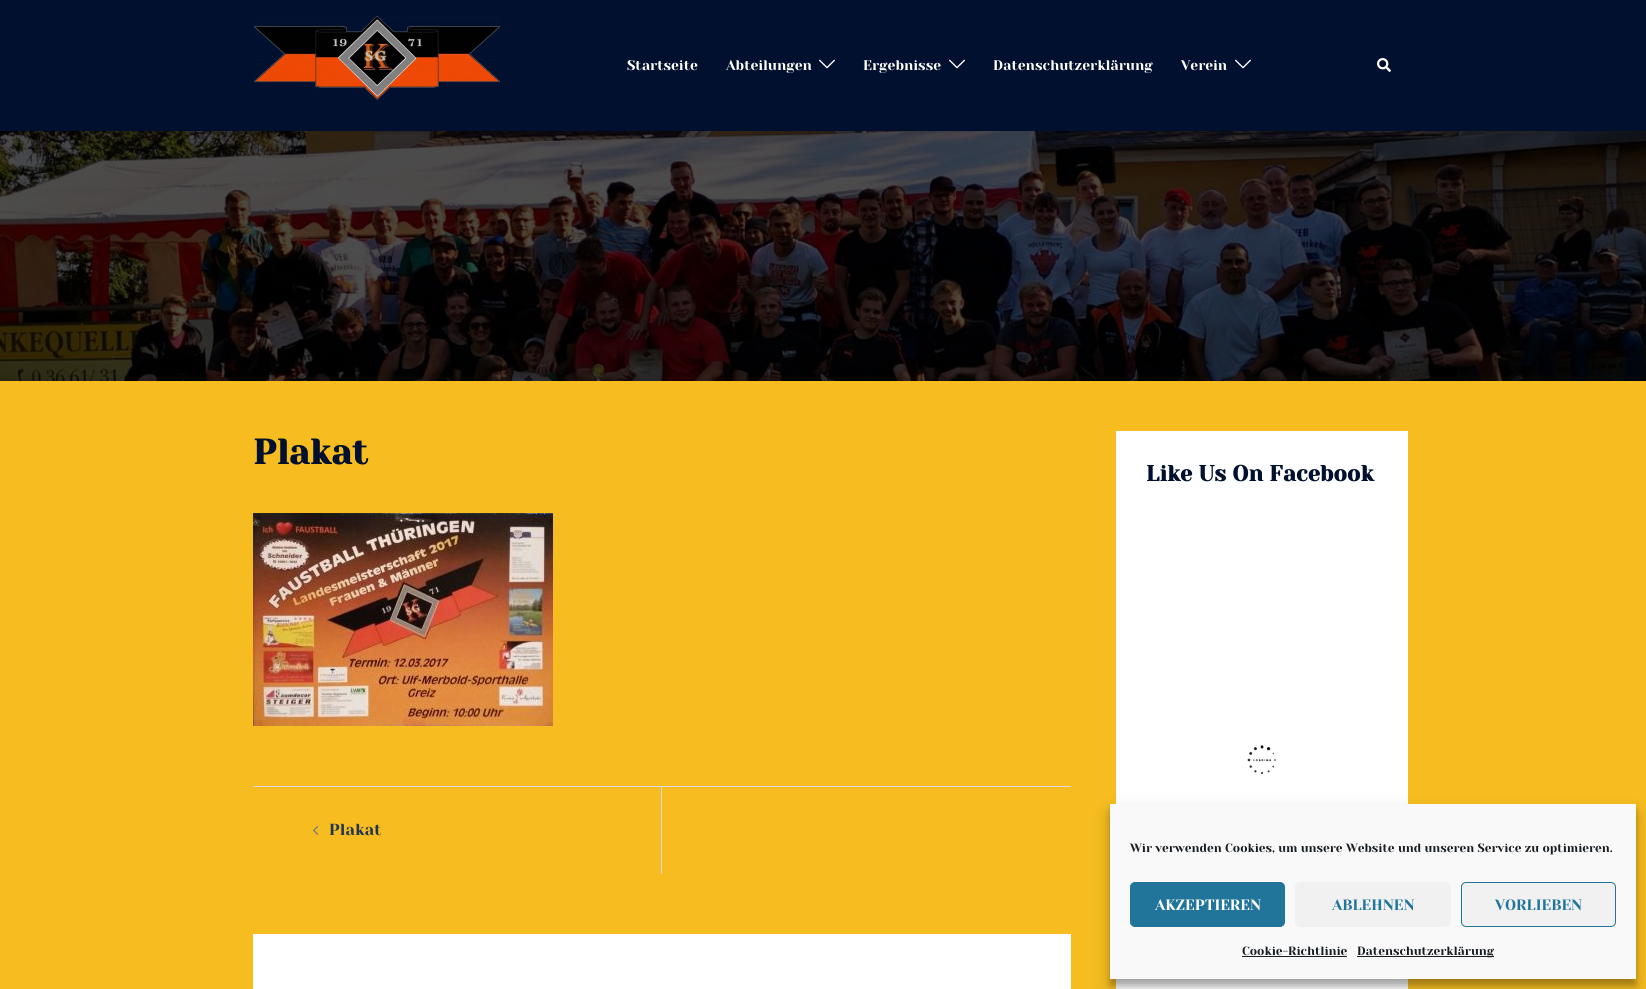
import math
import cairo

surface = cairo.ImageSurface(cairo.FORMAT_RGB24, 1646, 989)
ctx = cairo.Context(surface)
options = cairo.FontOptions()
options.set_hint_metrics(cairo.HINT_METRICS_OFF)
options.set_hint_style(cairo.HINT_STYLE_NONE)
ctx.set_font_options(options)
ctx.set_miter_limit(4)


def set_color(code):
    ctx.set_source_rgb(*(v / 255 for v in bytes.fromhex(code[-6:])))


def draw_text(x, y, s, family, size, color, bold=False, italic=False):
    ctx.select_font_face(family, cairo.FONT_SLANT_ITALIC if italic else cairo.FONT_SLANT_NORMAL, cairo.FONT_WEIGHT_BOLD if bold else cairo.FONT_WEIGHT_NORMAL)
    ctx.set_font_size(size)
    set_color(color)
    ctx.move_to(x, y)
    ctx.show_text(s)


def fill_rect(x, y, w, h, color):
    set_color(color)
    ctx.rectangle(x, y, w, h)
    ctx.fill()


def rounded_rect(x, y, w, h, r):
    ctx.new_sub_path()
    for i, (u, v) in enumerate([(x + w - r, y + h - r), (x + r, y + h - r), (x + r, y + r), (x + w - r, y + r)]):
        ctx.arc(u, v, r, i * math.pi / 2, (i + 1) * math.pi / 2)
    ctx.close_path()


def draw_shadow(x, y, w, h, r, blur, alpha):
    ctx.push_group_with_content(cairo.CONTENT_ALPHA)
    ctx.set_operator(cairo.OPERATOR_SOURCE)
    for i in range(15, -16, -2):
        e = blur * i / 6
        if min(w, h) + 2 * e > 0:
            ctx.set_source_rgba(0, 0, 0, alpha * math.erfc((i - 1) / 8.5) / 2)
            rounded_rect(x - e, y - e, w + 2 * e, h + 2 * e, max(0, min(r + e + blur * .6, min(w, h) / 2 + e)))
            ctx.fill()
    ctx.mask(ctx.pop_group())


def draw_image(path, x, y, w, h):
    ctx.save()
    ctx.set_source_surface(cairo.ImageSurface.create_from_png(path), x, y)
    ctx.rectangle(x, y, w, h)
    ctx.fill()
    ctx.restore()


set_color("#f7bd20")
ctx.paint()
fill_rect(0, 0, 1646, 131, "#00102e")
draw_image("assets/img1.png", 254, 16, 246, 84)
draw_text(627, 70, "Startseite", "Yeseva One", 14, "#ffffff")
draw_text(726, 70, "Abteilungen", "Yeseva One", 14, "#ffffff")
draw_image("assets/img2.png", 819, 59, 16, 10)
draw_text(863, 70, "Ergebnisse", "Yeseva One", 14, "#ffffff")
draw_image("assets/img2.png", 949, 59, 16, 10)
draw_text(993, 70, "Datenschutzerklärung", "Yeseva One", 14, "#ffffff")
draw_text(1181, 70, "Verein", "Yeseva One", 14, "#ffffff")
draw_image("assets/img2.png", 1235, 59, 16, 10)
draw_image("assets/img3.png", 1377, 58, 14, 14)
draw_image("assets/img4.png", 0, 131, 1646, 250)
draw_text(253, 464, "Plakat", "Yeseva One", 35, "#00102e", bold=True)
draw_image("assets/img5.png", 253, 513, 300, 213)
fill_rect(253, 786, 818, 1, "#dbdbdb")
fill_rect(661, 787, 1, 87, "#dbdbdb")
draw_image("assets/img6.png", 313, 826, 6, 9)
draw_text(329, 835, "Plakat", "Yeseva One", 16, "#233452")
fill_rect(253, 934, 818, 55, "#ffffff")
fill_rect(1116, 431, 292, 558, "#ffffff")
draw_text(1146, 481, "Like Us On Facebook", "Yeseva One", 22, "#00102e", bold=True)
draw_image("assets/img7.png", 1247, 745, 29, 29)
set_color("#000000")
draw_shadow(1110, 810, 526, 175, 0, 3, 0.23)
draw_shadow(1110, 814, 526, 175, 0, 10, 0.19)
fill_rect(1110, 804, 526, 175, "#f9f9f9")
draw_text(1130, 852, "Wir verwenden Cookies, um unsere Website und unseren Service zu optimieren.", "Yeseva One", 12, "#191e23")
set_color("#21759b")
rounded_rect(1130.5, 882.5, 154, 44, 4.5)
ctx.fill_preserve()
ctx.set_line_width(1)
ctx.stroke()
draw_text(1155, 910, "AKZEPTIEREN", "Yeseva One", 15, "#ffffff")
set_color("#f1f1f1")
rounded_rect(1295, 882, 156, 45, 5)
ctx.fill()
draw_text(1332, 910, "ABLEHNEN", "Yeseva One", 15, "#21759b")
set_color("#f1f1f1")
rounded_rect(1461.5, 882.5, 154, 44, 4.5)
ctx.fill_preserve()
set_color("#21759b")
ctx.stroke()
draw_text(1495, 910, "VORLIEBEN", "Yeseva One", 15, "#21759b")
draw_text(1242, 955, "Cookie-Richtlinie", "Yeseva One", 12, "#191e23")
fill_rect(1242, 956, 105, 1, "#191e23")
fill_rect(1357, 956, 137, 1, "#191e23")
draw_text(1357, 955, "Datenschutzerklärung", "Yeseva One", 12, "#191e23")
surface.write_to_png("output.png")
